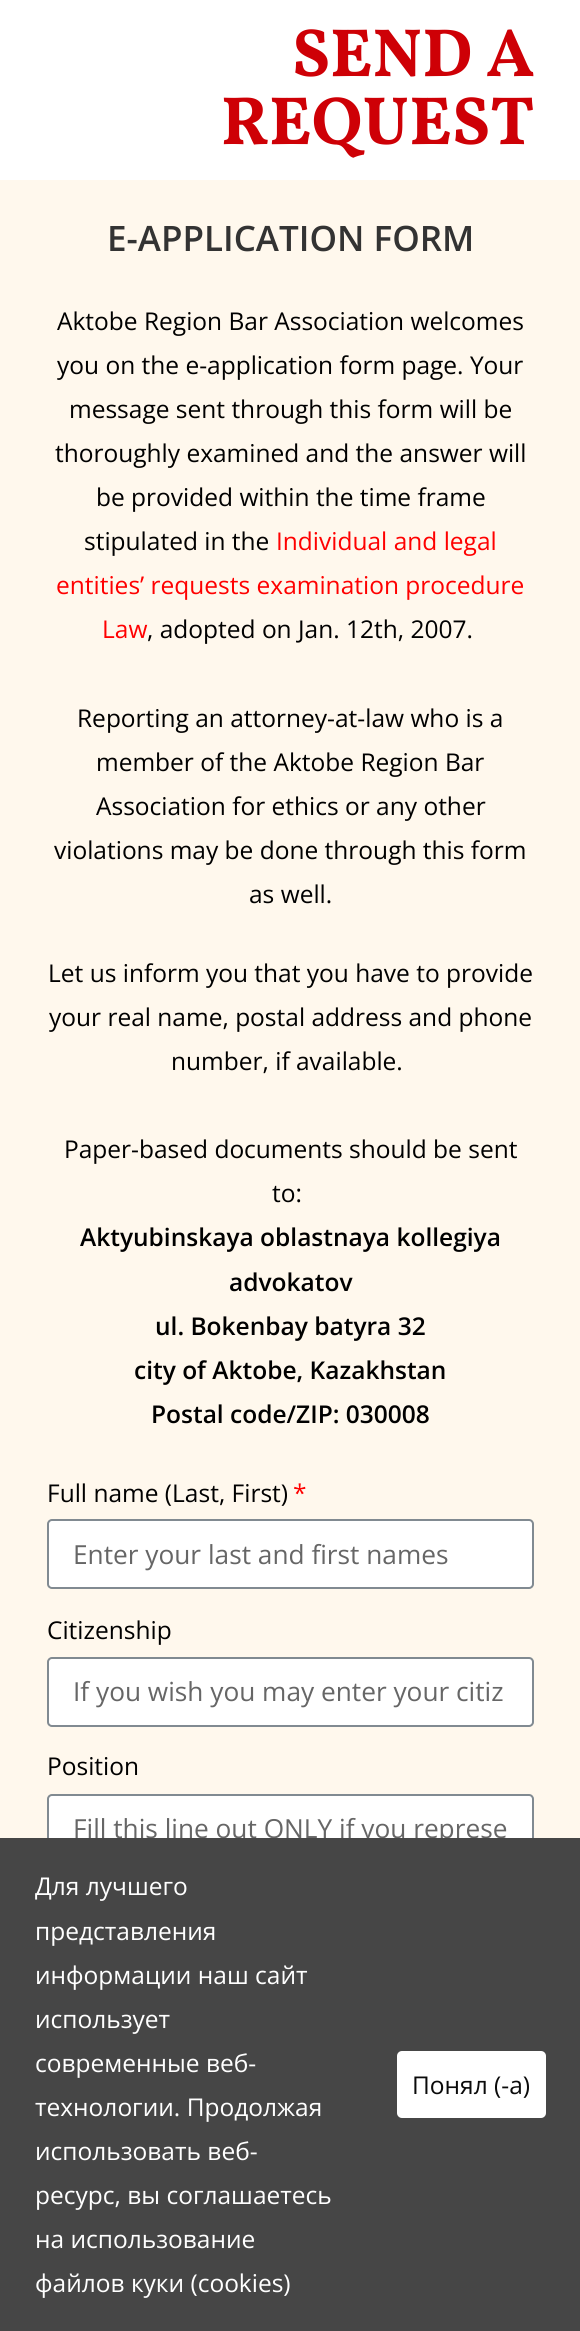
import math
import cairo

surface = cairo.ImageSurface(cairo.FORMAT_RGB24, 580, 2331)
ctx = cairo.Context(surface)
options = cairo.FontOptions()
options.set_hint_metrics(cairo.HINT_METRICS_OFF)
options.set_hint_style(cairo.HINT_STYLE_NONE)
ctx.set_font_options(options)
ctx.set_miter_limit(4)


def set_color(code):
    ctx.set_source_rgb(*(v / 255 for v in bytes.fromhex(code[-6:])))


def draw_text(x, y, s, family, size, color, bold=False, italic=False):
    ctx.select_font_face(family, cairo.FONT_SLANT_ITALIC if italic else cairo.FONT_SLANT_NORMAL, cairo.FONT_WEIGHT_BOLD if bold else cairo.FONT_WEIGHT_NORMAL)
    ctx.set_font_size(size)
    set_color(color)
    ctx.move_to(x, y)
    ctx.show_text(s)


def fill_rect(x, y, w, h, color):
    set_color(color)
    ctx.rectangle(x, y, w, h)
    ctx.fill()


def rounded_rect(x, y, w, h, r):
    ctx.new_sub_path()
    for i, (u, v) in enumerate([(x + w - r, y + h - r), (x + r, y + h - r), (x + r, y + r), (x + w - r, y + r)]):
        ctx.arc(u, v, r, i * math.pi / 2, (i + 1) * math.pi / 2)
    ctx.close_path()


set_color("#ffffff")
ctx.paint()
draw_text(292, 76, "SEND A", "Vollkorn", 68.25, "#ce0006", bold=True)
draw_text(221, 144, "REQUEST", "Vollkorn", 68.25, "#ce0006", bold=True)
fill_rect(0, 180, 580, 1658, "#fff8ed")
draw_text(107, 251, "E-APPLICATION FORM", "Open Sans SemiBold", 35, "#333333")
draw_text(57, 330, "Aktobe Region Bar Association welcomes", "Open Sans", 24.5, "#000000")
draw_text(57, 374, "you on the e-application form page. Your", "Open Sans", 24.5, "#000000")
draw_text(69, 418, "message sent through this form will be", "Open Sans", 24.5, "#000000")
draw_text(55, 462, "thoroughly examined and the answer will", "Open Sans", 24.5, "#000000")
draw_text(96, 506, "be provided within the time frame", "Open Sans", 24.5, "#000000")
draw_text(84, 550, "stipulated in the", "Open Sans", 24.5, "#000000")
draw_text(276, 550, "Individual and legal", "Open Sans", 24.5, "#ff0000")
draw_text(56, 594, "entities’ requests examination procedure", "Open Sans", 24.5, "#ff0000")
draw_text(102, 638, "Law", "Open Sans", 24.5, "#ff0000")
draw_text(147, 638, ", adopted on Jan. 12th, 2007.", "Open Sans", 24.5, "#000000")
draw_text(77, 727, "Reporting an attorney-at-law who is a", "Open Sans", 24.5, "#000000")
draw_text(96, 771, "member of the Aktobe Region Bar", "Open Sans", 24.5, "#000000")
draw_text(96, 815, "Association for ethics or any other", "Open Sans", 24.5, "#000000")
draw_text(54, 859, "violations may be done through this form", "Open Sans", 24.5, "#000000")
draw_text(249, 903, "as well.", "Open Sans", 24.5, "#000000")
draw_text(48, 982, "Let us inform you that you have to provide", "Open Sans", 24.5, "#000000")
draw_text(49, 1026, "your real name, postal address and phone", "Open Sans", 24.5, "#000000")
draw_text(171, 1070, "number, if available.", "Open Sans", 24.5, "#000000")
draw_text(64, 1158, "Paper-based documents should be sent", "Open Sans", 24.5, "#000000")
draw_text(272, 1202, "to:", "Open Sans", 24.5, "#000000")
draw_text(80, 1246, "Aktyubinskaya oblastnaya kollegiya", "Open Sans SemiBold", 24.5, "#000000")
draw_text(229, 1291, "advokatov", "Open Sans SemiBold", 24.5, "#000000")
draw_text(155, 1335, "ul. Bokenbay batyra 32", "Open Sans SemiBold", 24.5, "#000000")
draw_text(134, 1379, "city of Aktobe, Kazakhstan", "Open Sans SemiBold", 24.5, "#000000")
draw_text(151, 1423, "Postal code/ZIP: 030008", "Open Sans SemiBold", 24.5, "#000000")
draw_text(47, 1502, "Full name (Last, First)", "Open Sans", 24.5, "#000000")
draw_text(293, 1502, "*", "Open Sans", 24.5, "#ff0000")
set_color("#ffffff")
rounded_rect(48, 1520, 485, 68, 4)
ctx.fill_preserve()
set_color("#818a91")
ctx.stroke()
draw_text(73, 1564, "Enter your last and first names", "Open Sans", 26.25, "#666666")
draw_text(47, 1639, "Citizenship", "Open Sans", 24.5, "#000000")
set_color("#ffffff")
rounded_rect(48, 1658, 485, 68, 4)
ctx.fill_preserve()
set_color("#818a91")
ctx.stroke()
draw_text(73, 1701, "If you wish you may enter your citiz", "Open Sans", 26.25, "#666666")
draw_text(47, 1775, "Position", "Open Sans", 24.5, "#000000")
set_color("#ffffff")
rounded_rect(48, 1795, 485, 68, 4)
ctx.fill_preserve()
set_color("#818a91")
ctx.stroke()
draw_text(73, 1838, "Fill this line out ONLY if you represe", "Open Sans", 26.25, "#666666")
fill_rect(0, 1838, 580, 493, "#464646")
draw_text(35, 1895, "Для лучшего", "Open Sans", 24.5, "#ffffff")
draw_text(35, 1940, "представления", "Open Sans", 24.5, "#ffffff")
draw_text(35, 1984, "информации наш сайт", "Open Sans", 24.5, "#ffffff")
draw_text(35, 2028, "использует", "Open Sans", 24.5, "#ffffff")
draw_text(35, 2072, "современные веб-", "Open Sans", 24.5, "#ffffff")
draw_text(35, 2116, "технологии. Продолжая", "Open Sans", 24.5, "#ffffff")
draw_text(35, 2160, "использовать веб-", "Open Sans", 24.5, "#ffffff")
draw_text(35, 2204, "ресурс, вы соглашаетесь", "Open Sans", 24.5, "#ffffff")
draw_text(35, 2248, "на использование", "Open Sans", 24.5, "#ffffff")
draw_text(35, 2292, "файлов куки (cookies)", "Open Sans", 24.5, "#ffffff")
rounded_rect(397, 2051, 149, 67, 5)
ctx.fill()
draw_text(412, 2094, "Понял (-а)", "Open Sans", 24.5, "#0a0a0a")
surface.write_to_png("output.png")
